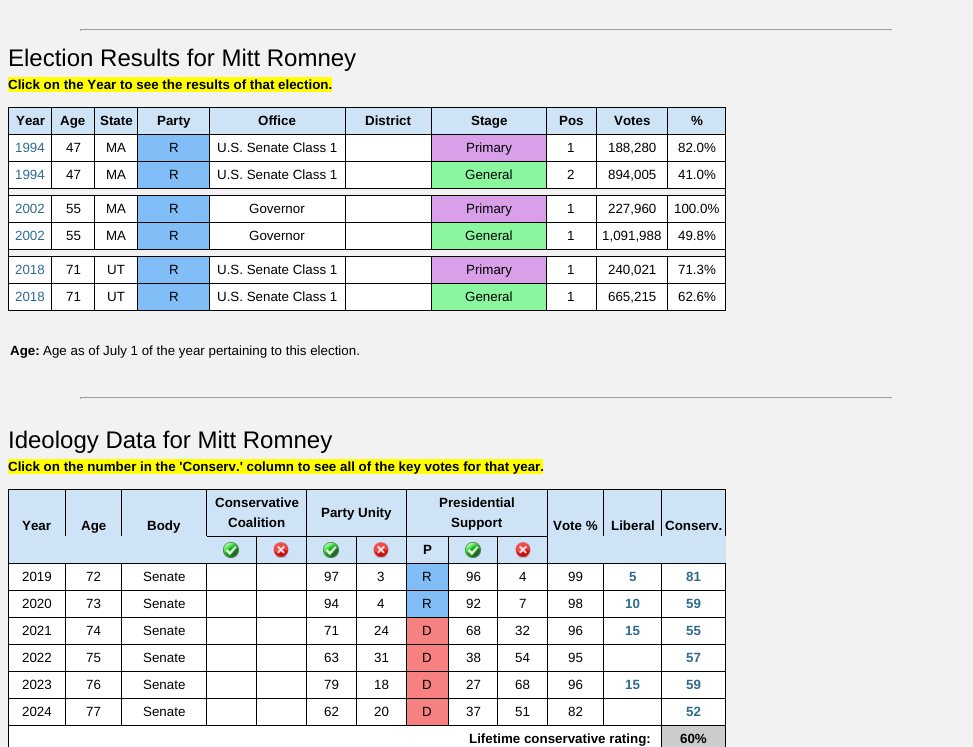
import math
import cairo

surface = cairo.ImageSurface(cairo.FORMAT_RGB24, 973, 747)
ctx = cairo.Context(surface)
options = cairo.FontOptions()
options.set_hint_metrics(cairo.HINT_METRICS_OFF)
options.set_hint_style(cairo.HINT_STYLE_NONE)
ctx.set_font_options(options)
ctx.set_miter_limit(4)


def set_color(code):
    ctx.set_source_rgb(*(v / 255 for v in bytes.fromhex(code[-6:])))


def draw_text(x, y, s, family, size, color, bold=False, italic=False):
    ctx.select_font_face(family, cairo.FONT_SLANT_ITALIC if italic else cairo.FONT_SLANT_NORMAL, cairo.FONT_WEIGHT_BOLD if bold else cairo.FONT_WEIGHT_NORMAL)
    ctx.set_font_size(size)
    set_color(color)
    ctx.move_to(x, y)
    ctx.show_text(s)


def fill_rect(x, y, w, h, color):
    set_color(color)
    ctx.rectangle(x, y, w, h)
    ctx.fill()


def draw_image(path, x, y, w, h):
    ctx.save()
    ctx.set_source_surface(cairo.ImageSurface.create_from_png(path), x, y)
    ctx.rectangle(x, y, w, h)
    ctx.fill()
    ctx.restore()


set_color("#f2f2f2")
ctx.paint()
fill_rect(80, 29, 813, 1, "#9f9f9f")
fill_rect(892, 29, 1, 2, "#eeeeee")
fill_rect(80, 30, 813, 1, "#eeeeee")
fill_rect(80, 29, 1, 2, "#9f9f9f")
draw_text(8, 66, "Election Results for Mitt Romney", "Liberation Sans", 24, "#000000")
fill_rect(8, 77, 324, 15, "#ffff00")
draw_text(8, 89, "Click on the Year to see the results of that election.", "Liberation Sans", 13.35, "#000000", bold=True)
fill_rect(9, 135, 716, 175, "#ffffff")
fill_rect(8, 310, 718, 1, "#000000")
fill_rect(8, 107, 1, 204, "#000000")
fill_rect(9, 108, 716, 26, "#cee3f6")
fill_rect(9, 107, 717, 1, "#000000")
fill_rect(51, 107, 1, 27, "#000000")
draw_text(16, 125, "Year", "Liberation Sans", 13.35, "#000000", bold=True)
fill_rect(94, 107, 1, 27, "#000000")
draw_text(60, 125, "Age", "Liberation Sans", 13.35, "#000000", bold=True)
fill_rect(137, 107, 1, 27, "#000000")
draw_text(100, 125, "State", "Liberation Sans", 13.35, "#000000", bold=True)
fill_rect(209, 107, 1, 27, "#000000")
draw_text(157, 125, "Party", "Liberation Sans", 13.35, "#000000", bold=True)
fill_rect(345, 107, 1, 27, "#000000")
draw_text(258, 125, "Office", "Liberation Sans", 13.35, "#000000", bold=True)
fill_rect(431, 107, 1, 27, "#000000")
draw_text(365, 125, "District", "Liberation Sans", 13.35, "#000000", bold=True)
fill_rect(546, 107, 1, 27, "#000000")
draw_text(471, 125, "Stage", "Liberation Sans", 13.35, "#000000", bold=True)
fill_rect(596, 107, 1, 27, "#000000")
draw_text(559, 125, "Pos", "Liberation Sans", 13.35, "#000000", bold=True)
fill_rect(667, 107, 1, 27, "#000000")
draw_text(614, 125, "Votes", "Liberation Sans", 13.35, "#000000", bold=True)
fill_rect(725, 107, 1, 27, "#000000")
draw_text(691, 125, "%", "Liberation Sans", 13.35, "#000000", bold=True)
fill_rect(9, 134, 717, 1, "#000000")
fill_rect(51, 134, 1, 27, "#000000")
draw_text(15, 152, "1994", "Liberation Sans", 13.35, "#2f6b91")
fill_rect(94, 134, 1, 27, "#000000")
draw_text(66, 152, "47", "Liberation Sans", 13.35, "#000000")
fill_rect(137, 134, 1, 27, "#000000")
draw_text(106, 152, "MA", "Liberation Sans", 13.35, "#000000")
fill_rect(138, 135, 71, 26, "#81bef7")
fill_rect(209, 134, 1, 27, "#000000")
draw_text(169, 152, "R", "Liberation Sans", 13.35, "#000000")
fill_rect(345, 134, 1, 27, "#000000")
draw_text(217, 152, "U.S. Senate Class 1", "Liberation Sans", 13.35, "#000000")
fill_rect(431, 134, 1, 27, "#000000")
fill_rect(432, 135, 114, 26, "#d99fe8")
fill_rect(546, 134, 1, 27, "#000000")
draw_text(466, 152, "Primary", "Liberation Sans", 13.35, "#000000")
fill_rect(596, 134, 1, 27, "#000000")
draw_text(567, 152, "1", "Liberation Sans", 13.35, "#000000")
fill_rect(667, 134, 1, 27, "#000000")
draw_text(608, 152, "188,280", "Liberation Sans", 13.35, "#000000")
fill_rect(725, 134, 1, 27, "#000000")
draw_text(678, 152, "82.0%", "Liberation Sans", 13.35, "#000000")
fill_rect(9, 161, 717, 1, "#000000")
fill_rect(51, 161, 1, 27, "#000000")
draw_text(15, 179, "1994", "Liberation Sans", 13.35, "#2f6b91")
fill_rect(94, 161, 1, 27, "#000000")
draw_text(66, 179, "47", "Liberation Sans", 13.35, "#000000")
fill_rect(137, 161, 1, 27, "#000000")
draw_text(106, 179, "MA", "Liberation Sans", 13.35, "#000000")
fill_rect(138, 162, 71, 26, "#81bef7")
fill_rect(209, 161, 1, 27, "#000000")
draw_text(169, 179, "R", "Liberation Sans", 13.35, "#000000")
fill_rect(345, 161, 1, 27, "#000000")
draw_text(217, 179, "U.S. Senate Class 1", "Liberation Sans", 13.35, "#000000")
fill_rect(431, 161, 1, 27, "#000000")
fill_rect(432, 162, 114, 26, "#8af79f")
fill_rect(546, 161, 1, 27, "#000000")
draw_text(465, 179, "General", "Liberation Sans", 13.35, "#000000")
fill_rect(596, 161, 1, 27, "#000000")
draw_text(567, 179, "2", "Liberation Sans", 13.35, "#000000")
fill_rect(667, 161, 1, 27, "#000000")
draw_text(608, 179, "894,005", "Liberation Sans", 13.35, "#000000")
fill_rect(725, 161, 1, 27, "#000000")
draw_text(678, 179, "41.0%", "Liberation Sans", 13.35, "#000000")
fill_rect(9, 189, 717, 6, "#f2f2f2")
fill_rect(9, 188, 717, 1, "#000000")
fill_rect(725, 188, 1, 7, "#000000")
fill_rect(9, 195, 717, 1, "#000000")
fill_rect(51, 195, 1, 27, "#000000")
draw_text(15, 213, "2002", "Liberation Sans", 13.35, "#2f6b91")
fill_rect(94, 195, 1, 27, "#000000")
draw_text(66, 213, "55", "Liberation Sans", 13.35, "#000000")
fill_rect(137, 195, 1, 27, "#000000")
draw_text(106, 213, "MA", "Liberation Sans", 13.35, "#000000")
fill_rect(138, 196, 71, 26, "#81bef7")
fill_rect(209, 195, 1, 27, "#000000")
draw_text(169, 213, "R", "Liberation Sans", 13.35, "#000000")
fill_rect(345, 195, 1, 27, "#000000")
draw_text(249, 213, "Governor", "Liberation Sans", 13.35, "#000000")
fill_rect(431, 195, 1, 27, "#000000")
fill_rect(432, 196, 114, 26, "#d99fe8")
fill_rect(546, 195, 1, 27, "#000000")
draw_text(466, 213, "Primary", "Liberation Sans", 13.35, "#000000")
fill_rect(596, 195, 1, 27, "#000000")
draw_text(567, 213, "1", "Liberation Sans", 13.35, "#000000")
fill_rect(667, 195, 1, 27, "#000000")
draw_text(608, 213, "227,960", "Liberation Sans", 13.35, "#000000")
fill_rect(725, 195, 1, 27, "#000000")
draw_text(674, 213, "100.0%", "Liberation Sans", 13.35, "#000000")
fill_rect(9, 222, 717, 1, "#000000")
fill_rect(51, 222, 1, 27, "#000000")
draw_text(15, 240, "2002", "Liberation Sans", 13.35, "#2f6b91")
fill_rect(94, 222, 1, 27, "#000000")
draw_text(66, 240, "55", "Liberation Sans", 13.35, "#000000")
fill_rect(137, 222, 1, 27, "#000000")
draw_text(106, 240, "MA", "Liberation Sans", 13.35, "#000000")
fill_rect(138, 223, 71, 26, "#81bef7")
fill_rect(209, 222, 1, 27, "#000000")
draw_text(169, 240, "R", "Liberation Sans", 13.35, "#000000")
fill_rect(345, 222, 1, 27, "#000000")
draw_text(249, 240, "Governor", "Liberation Sans", 13.35, "#000000")
fill_rect(431, 222, 1, 27, "#000000")
fill_rect(432, 223, 114, 26, "#8af79f")
fill_rect(546, 222, 1, 27, "#000000")
draw_text(465, 240, "General", "Liberation Sans", 13.35, "#000000")
fill_rect(596, 222, 1, 27, "#000000")
draw_text(567, 240, "1", "Liberation Sans", 13.35, "#000000")
fill_rect(667, 222, 1, 27, "#000000")
draw_text(602, 240, "1,091,988", "Liberation Sans", 13.35, "#000000")
fill_rect(725, 222, 1, 27, "#000000")
draw_text(678, 240, "49.8%", "Liberation Sans", 13.35, "#000000")
fill_rect(9, 250, 717, 6, "#f2f2f2")
fill_rect(9, 249, 717, 1, "#000000")
fill_rect(725, 249, 1, 7, "#000000")
fill_rect(9, 256, 717, 1, "#000000")
fill_rect(51, 256, 1, 27, "#000000")
draw_text(15, 274, "2018", "Liberation Sans", 13.35, "#2f6b91")
fill_rect(94, 256, 1, 27, "#000000")
draw_text(66, 274, "71", "Liberation Sans", 13.35, "#000000")
fill_rect(137, 256, 1, 27, "#000000")
draw_text(107, 274, "UT", "Liberation Sans", 13.35, "#000000")
fill_rect(138, 257, 71, 26, "#81bef7")
fill_rect(209, 256, 1, 27, "#000000")
draw_text(169, 274, "R", "Liberation Sans", 13.35, "#000000")
fill_rect(345, 256, 1, 27, "#000000")
draw_text(217, 274, "U.S. Senate Class 1", "Liberation Sans", 13.35, "#000000")
fill_rect(431, 256, 1, 27, "#000000")
fill_rect(432, 257, 114, 26, "#d99fe8")
fill_rect(546, 256, 1, 27, "#000000")
draw_text(466, 274, "Primary", "Liberation Sans", 13.35, "#000000")
fill_rect(596, 256, 1, 27, "#000000")
draw_text(567, 274, "1", "Liberation Sans", 13.35, "#000000")
fill_rect(667, 256, 1, 27, "#000000")
draw_text(608, 274, "240,021", "Liberation Sans", 13.35, "#000000")
fill_rect(725, 256, 1, 27, "#000000")
draw_text(678, 274, "71.3%", "Liberation Sans", 13.35, "#000000")
fill_rect(9, 283, 717, 1, "#000000")
fill_rect(51, 283, 1, 27, "#000000")
draw_text(15, 301, "2018", "Liberation Sans", 13.35, "#2f6b91")
fill_rect(94, 283, 1, 27, "#000000")
draw_text(66, 301, "71", "Liberation Sans", 13.35, "#000000")
fill_rect(137, 283, 1, 27, "#000000")
draw_text(107, 301, "UT", "Liberation Sans", 13.35, "#000000")
fill_rect(138, 284, 71, 26, "#81bef7")
fill_rect(209, 283, 1, 27, "#000000")
draw_text(169, 301, "R", "Liberation Sans", 13.35, "#000000")
fill_rect(345, 283, 1, 27, "#000000")
draw_text(217, 301, "U.S. Senate Class 1", "Liberation Sans", 13.35, "#000000")
fill_rect(431, 283, 1, 27, "#000000")
fill_rect(432, 284, 114, 26, "#8af79f")
fill_rect(546, 283, 1, 27, "#000000")
draw_text(465, 301, "General", "Liberation Sans", 13.35, "#000000")
fill_rect(596, 283, 1, 27, "#000000")
draw_text(567, 301, "1", "Liberation Sans", 13.35, "#000000")
fill_rect(667, 283, 1, 27, "#000000")
draw_text(608, 301, "665,215", "Liberation Sans", 13.35, "#000000")
fill_rect(725, 283, 1, 27, "#000000")
draw_text(678, 301, "62.6%", "Liberation Sans", 13.35, "#000000")
draw_text(10, 355, "Age:", "Liberation Sans", 13.35, "#000000", bold=True)
draw_text(43, 355, "Age as of July 1 of the year pertaining to this election.", "Liberation Sans", 13.35, "#000000")
fill_rect(80, 397, 813, 1, "#9f9f9f")
fill_rect(892, 397, 1, 2, "#eeeeee")
fill_rect(80, 398, 813, 1, "#eeeeee")
fill_rect(80, 397, 1, 2, "#9f9f9f")
draw_text(8, 448, "Ideology Data for Mitt Romney", "Liberation Sans", 24, "#000000")
fill_rect(8, 459, 535, 15, "#ffff00")
draw_text(8, 471, "Click on the number in the 'Conserv.' column to see all of the key votes for that year.", "Liberation Sans", 13.35, "#000000", bold=True)
fill_rect(9, 564, 716, 183, "#ffffff")
fill_rect(8, 489, 1, 258, "#000000")
fill_rect(9, 490, 716, 46, "#cee3f6")
fill_rect(9, 489, 717, 1, "#000000")
fill_rect(306, 489, 1, 47, "#000000")
draw_text(215, 507, "Conservative", "Liberation Sans", 13.35, "#000000", bold=True)
draw_text(228, 527, "Coalition", "Liberation Sans", 13.35, "#000000", bold=True)
fill_rect(406, 489, 1, 47, "#000000")
draw_text(321, 517, "Party Unity", "Liberation Sans", 13.35, "#000000", bold=True)
fill_rect(547, 489, 1, 47, "#000000")
draw_text(439, 507, "Presidential", "Liberation Sans", 13.35, "#000000", bold=True)
draw_text(451, 527, "Support", "Liberation Sans", 13.35, "#000000", bold=True)
fill_rect(65, 489, 1, 47, "#000000")
draw_text(22, 530, "Year", "Liberation Sans", 13.35, "#000000", bold=True)
fill_rect(121, 489, 1, 47, "#000000")
draw_text(81, 530, "Age", "Liberation Sans", 13.35, "#000000", bold=True)
fill_rect(206, 489, 1, 47, "#000000")
draw_text(147, 530, "Body", "Liberation Sans", 13.35, "#000000", bold=True)
fill_rect(603, 489, 1, 47, "#000000")
draw_text(553, 530, "Vote %", "Liberation Sans", 13.35, "#000000", bold=True)
fill_rect(661, 489, 1, 47, "#000000")
draw_text(611, 530, "Liberal", "Liberation Sans", 13.35, "#000000", bold=True)
fill_rect(725, 489, 1, 47, "#000000")
draw_text(665, 530, "Conserv.", "Liberation Sans", 13.35, "#000000", bold=True)
fill_rect(9, 536, 717, 27, "#cee3f6")
fill_rect(207, 536, 341, 1, "#000000")
fill_rect(256, 536, 1, 27, "#000000")
draw_image("assets/img1.png", 223, 542, 16, 16)
fill_rect(306, 536, 1, 27, "#000000")
draw_image("assets/img2.png", 273, 542, 16, 16)
fill_rect(356, 536, 1, 27, "#000000")
draw_image("assets/img1.png", 323, 542, 16, 16)
fill_rect(406, 536, 1, 27, "#000000")
draw_image("assets/img2.png", 373, 542, 16, 16)
fill_rect(448, 536, 1, 27, "#000000")
draw_text(423, 554, "P", "Liberation Sans", 13.35, "#000000", bold=True)
fill_rect(497, 536, 1, 27, "#000000")
draw_image("assets/img1.png", 465, 542, 16, 16)
fill_rect(547, 536, 1, 27, "#000000")
draw_image("assets/img2.png", 515, 542, 16, 16)
fill_rect(9, 563, 717, 1, "#000000")
fill_rect(65, 563, 1, 27, "#000000")
draw_text(22, 581, "2019", "Liberation Sans", 13.35, "#000000")
fill_rect(121, 563, 1, 27, "#000000")
draw_text(86, 581, "72", "Liberation Sans", 13.35, "#000000")
fill_rect(206, 563, 1, 27, "#000000")
draw_text(143, 581, "Senate", "Liberation Sans", 13.35, "#000000")
fill_rect(256, 563, 1, 27, "#000000")
fill_rect(306, 563, 1, 27, "#000000")
fill_rect(356, 563, 1, 27, "#000000")
draw_text(324, 581, "97", "Liberation Sans", 13.35, "#000000")
fill_rect(406, 563, 1, 27, "#000000")
draw_text(377, 581, "3", "Liberation Sans", 13.35, "#000000")
fill_rect(407, 564, 41, 26, "#81bef7")
fill_rect(448, 563, 1, 27, "#000000")
draw_text(422, 581, "R", "Liberation Sans", 13.35, "#000000")
fill_rect(497, 563, 1, 27, "#000000")
draw_text(466, 581, "96", "Liberation Sans", 13.35, "#000000")
fill_rect(547, 563, 1, 27, "#000000")
draw_text(519, 581, "4", "Liberation Sans", 13.35, "#000000")
fill_rect(603, 563, 1, 27, "#000000")
draw_text(568, 581, "99", "Liberation Sans", 13.35, "#000000")
fill_rect(661, 563, 1, 27, "#000000")
draw_text(629, 581, "5", "Liberation Sans", 13.35, "#2f6b91", bold=True)
fill_rect(725, 563, 1, 27, "#000000")
draw_text(686, 581, "81", "Liberation Sans", 13.35, "#2f6b91", bold=True)
fill_rect(9, 590, 717, 1, "#000000")
fill_rect(65, 590, 1, 27, "#000000")
draw_text(22, 608, "2020", "Liberation Sans", 13.35, "#000000")
fill_rect(121, 590, 1, 27, "#000000")
draw_text(86, 608, "73", "Liberation Sans", 13.35, "#000000")
fill_rect(206, 590, 1, 27, "#000000")
draw_text(143, 608, "Senate", "Liberation Sans", 13.35, "#000000")
fill_rect(256, 590, 1, 27, "#000000")
fill_rect(306, 590, 1, 27, "#000000")
fill_rect(356, 590, 1, 27, "#000000")
draw_text(324, 608, "94", "Liberation Sans", 13.35, "#000000")
fill_rect(406, 590, 1, 27, "#000000")
draw_text(377, 608, "4", "Liberation Sans", 13.35, "#000000")
fill_rect(407, 591, 41, 26, "#81bef7")
fill_rect(448, 590, 1, 27, "#000000")
draw_text(422, 608, "R", "Liberation Sans", 13.35, "#000000")
fill_rect(497, 590, 1, 27, "#000000")
draw_text(466, 608, "92", "Liberation Sans", 13.35, "#000000")
fill_rect(547, 590, 1, 27, "#000000")
draw_text(519, 608, "7", "Liberation Sans", 13.35, "#000000")
fill_rect(603, 590, 1, 27, "#000000")
draw_text(568, 608, "98", "Liberation Sans", 13.35, "#000000")
fill_rect(661, 590, 1, 27, "#000000")
draw_text(625, 608, "10", "Liberation Sans", 13.35, "#2f6b91", bold=True)
fill_rect(725, 590, 1, 27, "#000000")
draw_text(686, 608, "59", "Liberation Sans", 13.35, "#2f6b91", bold=True)
fill_rect(9, 617, 717, 1, "#000000")
fill_rect(65, 617, 1, 27, "#000000")
draw_text(22, 635, "2021", "Liberation Sans", 13.35, "#000000")
fill_rect(121, 617, 1, 27, "#000000")
draw_text(86, 635, "74", "Liberation Sans", 13.35, "#000000")
fill_rect(206, 617, 1, 27, "#000000")
draw_text(143, 635, "Senate", "Liberation Sans", 13.35, "#000000")
fill_rect(256, 617, 1, 27, "#000000")
fill_rect(306, 617, 1, 27, "#000000")
fill_rect(356, 617, 1, 27, "#000000")
draw_text(324, 635, "71", "Liberation Sans", 13.35, "#000000")
fill_rect(406, 617, 1, 27, "#000000")
draw_text(374, 635, "24", "Liberation Sans", 13.35, "#000000")
fill_rect(407, 618, 41, 26, "#f78181")
fill_rect(448, 617, 1, 27, "#000000")
draw_text(422, 635, "D", "Liberation Sans", 13.35, "#000000")
fill_rect(497, 617, 1, 27, "#000000")
draw_text(466, 635, "68", "Liberation Sans", 13.35, "#000000")
fill_rect(547, 617, 1, 27, "#000000")
draw_text(515, 635, "32", "Liberation Sans", 13.35, "#000000")
fill_rect(603, 617, 1, 27, "#000000")
draw_text(568, 635, "96", "Liberation Sans", 13.35, "#000000")
fill_rect(661, 617, 1, 27, "#000000")
draw_text(625, 635, "15", "Liberation Sans", 13.35, "#2f6b91", bold=True)
fill_rect(725, 617, 1, 27, "#000000")
draw_text(686, 635, "55", "Liberation Sans", 13.35, "#2f6b91", bold=True)
fill_rect(9, 644, 717, 1, "#000000")
fill_rect(65, 644, 1, 27, "#000000")
draw_text(22, 662, "2022", "Liberation Sans", 13.35, "#000000")
fill_rect(121, 644, 1, 27, "#000000")
draw_text(86, 662, "75", "Liberation Sans", 13.35, "#000000")
fill_rect(206, 644, 1, 27, "#000000")
draw_text(143, 662, "Senate", "Liberation Sans", 13.35, "#000000")
fill_rect(256, 644, 1, 27, "#000000")
fill_rect(306, 644, 1, 27, "#000000")
fill_rect(356, 644, 1, 27, "#000000")
draw_text(324, 662, "63", "Liberation Sans", 13.35, "#000000")
fill_rect(406, 644, 1, 27, "#000000")
draw_text(374, 662, "31", "Liberation Sans", 13.35, "#000000")
fill_rect(407, 645, 41, 26, "#f78181")
fill_rect(448, 644, 1, 27, "#000000")
draw_text(422, 662, "D", "Liberation Sans", 13.35, "#000000")
fill_rect(497, 644, 1, 27, "#000000")
draw_text(466, 662, "38", "Liberation Sans", 13.35, "#000000")
fill_rect(547, 644, 1, 27, "#000000")
draw_text(515, 662, "54", "Liberation Sans", 13.35, "#000000")
fill_rect(603, 644, 1, 27, "#000000")
draw_text(568, 662, "95", "Liberation Sans", 13.35, "#000000")
fill_rect(661, 644, 1, 27, "#000000")
fill_rect(725, 644, 1, 27, "#000000")
draw_text(686, 662, "57", "Liberation Sans", 13.35, "#2f6b91", bold=True)
fill_rect(9, 671, 717, 1, "#000000")
fill_rect(65, 671, 1, 27, "#000000")
draw_text(22, 689, "2023", "Liberation Sans", 13.35, "#000000")
fill_rect(121, 671, 1, 27, "#000000")
draw_text(86, 689, "76", "Liberation Sans", 13.35, "#000000")
fill_rect(206, 671, 1, 27, "#000000")
draw_text(143, 689, "Senate", "Liberation Sans", 13.35, "#000000")
fill_rect(256, 671, 1, 27, "#000000")
fill_rect(306, 671, 1, 27, "#000000")
fill_rect(356, 671, 1, 27, "#000000")
draw_text(324, 689, "79", "Liberation Sans", 13.35, "#000000")
fill_rect(406, 671, 1, 27, "#000000")
draw_text(374, 689, "18", "Liberation Sans", 13.35, "#000000")
fill_rect(407, 672, 41, 26, "#f78181")
fill_rect(448, 671, 1, 27, "#000000")
draw_text(422, 689, "D", "Liberation Sans", 13.35, "#000000")
fill_rect(497, 671, 1, 27, "#000000")
draw_text(466, 689, "27", "Liberation Sans", 13.35, "#000000")
fill_rect(547, 671, 1, 27, "#000000")
draw_text(515, 689, "68", "Liberation Sans", 13.35, "#000000")
fill_rect(603, 671, 1, 27, "#000000")
draw_text(568, 689, "96", "Liberation Sans", 13.35, "#000000")
fill_rect(661, 671, 1, 27, "#000000")
draw_text(625, 689, "15", "Liberation Sans", 13.35, "#2f6b91", bold=True)
fill_rect(725, 671, 1, 27, "#000000")
draw_text(686, 689, "59", "Liberation Sans", 13.35, "#2f6b91", bold=True)
fill_rect(9, 698, 717, 1, "#000000")
fill_rect(65, 698, 1, 27, "#000000")
draw_text(22, 716, "2024", "Liberation Sans", 13.35, "#000000")
fill_rect(121, 698, 1, 27, "#000000")
draw_text(86, 716, "77", "Liberation Sans", 13.35, "#000000")
fill_rect(206, 698, 1, 27, "#000000")
draw_text(143, 716, "Senate", "Liberation Sans", 13.35, "#000000")
fill_rect(256, 698, 1, 27, "#000000")
fill_rect(306, 698, 1, 27, "#000000")
fill_rect(356, 698, 1, 27, "#000000")
draw_text(324, 716, "62", "Liberation Sans", 13.35, "#000000")
fill_rect(406, 698, 1, 27, "#000000")
draw_text(374, 716, "20", "Liberation Sans", 13.35, "#000000")
fill_rect(407, 699, 41, 26, "#f78181")
fill_rect(448, 698, 1, 27, "#000000")
draw_text(422, 716, "D", "Liberation Sans", 13.35, "#000000")
fill_rect(497, 698, 1, 27, "#000000")
draw_text(466, 716, "37", "Liberation Sans", 13.35, "#000000")
fill_rect(547, 698, 1, 27, "#000000")
draw_text(515, 716, "51", "Liberation Sans", 13.35, "#000000")
fill_rect(603, 698, 1, 27, "#000000")
draw_text(568, 716, "82", "Liberation Sans", 13.35, "#000000")
fill_rect(661, 698, 1, 27, "#000000")
fill_rect(725, 698, 1, 27, "#000000")
draw_text(686, 716, "52", "Liberation Sans", 13.35, "#2f6b91", bold=True)
fill_rect(9, 725, 717, 1, "#000000")
fill_rect(661, 725, 1, 22, "#000000")
draw_text(469, 743, "Lifetime conservative rating:", "Liberation Sans", 13.35, "#000000", bold=True)
fill_rect(662, 726, 63, 21, "#cccccc")
fill_rect(725, 725, 1, 22, "#000000")
draw_text(680, 743, "60%", "Liberation Sans", 13.35, "#000000", bold=True)
surface.write_to_png("output.png")
